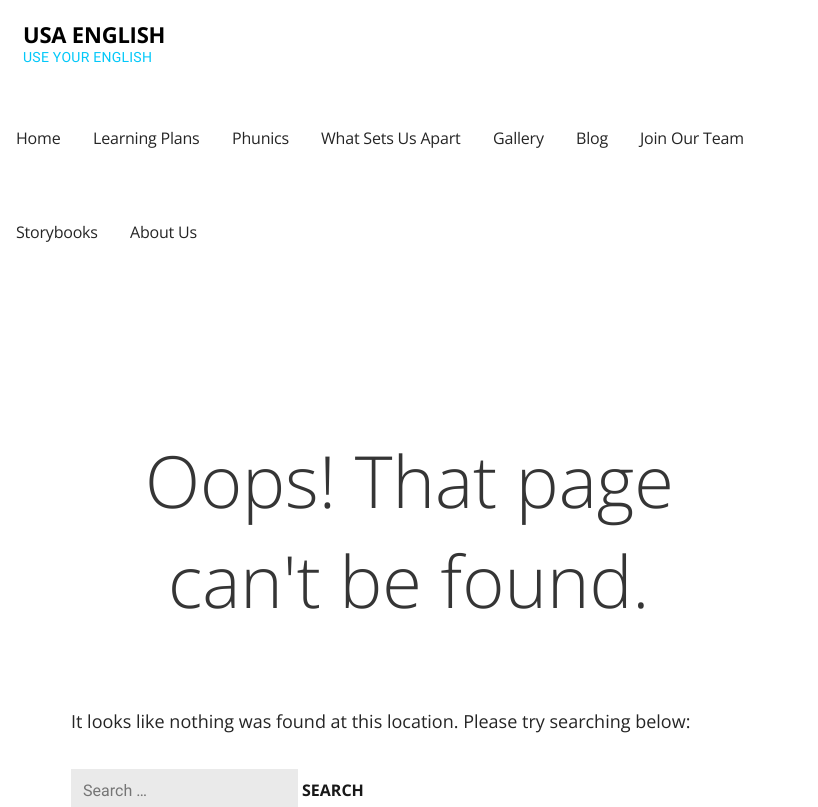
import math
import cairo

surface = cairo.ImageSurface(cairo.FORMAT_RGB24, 818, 807)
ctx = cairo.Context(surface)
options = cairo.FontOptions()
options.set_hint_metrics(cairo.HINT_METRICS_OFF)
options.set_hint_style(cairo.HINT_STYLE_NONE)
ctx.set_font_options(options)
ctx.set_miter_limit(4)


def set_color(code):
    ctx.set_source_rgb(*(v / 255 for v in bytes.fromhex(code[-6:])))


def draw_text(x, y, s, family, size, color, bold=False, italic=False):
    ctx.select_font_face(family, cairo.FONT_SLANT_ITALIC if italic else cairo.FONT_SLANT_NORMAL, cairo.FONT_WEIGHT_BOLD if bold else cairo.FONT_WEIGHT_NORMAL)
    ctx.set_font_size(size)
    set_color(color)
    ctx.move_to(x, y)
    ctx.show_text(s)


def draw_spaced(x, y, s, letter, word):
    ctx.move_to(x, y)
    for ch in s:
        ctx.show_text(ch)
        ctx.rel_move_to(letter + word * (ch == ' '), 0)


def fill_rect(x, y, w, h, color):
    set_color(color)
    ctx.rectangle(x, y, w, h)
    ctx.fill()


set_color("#ffffff")
ctx.paint()
ctx.select_font_face("Open Sans", cairo.FONT_SLANT_NORMAL, cairo.FONT_WEIGHT_BOLD)
ctx.set_font_size(22)
set_color("#000000")
draw_spaced(23, 43, "USA ENGLISH", -0.2, 0)
ctx.select_font_face("Roboto")
ctx.set_font_size(14)
set_color("#02c8f9")
draw_spaced(23, 62, "USE YOUR ENGLISH", 0.25, 0)
ctx.select_font_face("Open Sans")
ctx.set_font_size(16)
set_color("#252525")
draw_spaced(16, 144, "Home", -0.2, 0)
draw_spaced(93, 144, "Learning Plans", -0.2, 0)
draw_spaced(232, 144, "Phunics", -0.2, 0)
draw_spaced(321, 144, "What Sets Us Apart", -0.2, 0)
draw_spaced(493, 144, "Gallery", -0.2, 0)
draw_spaced(576, 144, "Blog", -0.2, 0)
draw_spaced(640, 144, "Join Our Team", -0.2, 0)
draw_spaced(16, 238, "Storybooks", -0.2, 0)
draw_spaced(130, 238, "About Us", -0.2, 0)
draw_text(145, 508, "Oops! That page", "Open Sans Light", 72, "#353535")
draw_text(168, 608, "can't be found.", "Open Sans Light", 72, "#353535")
draw_text(71, 728, "It looks like nothing was found at this location. Please try searching below:", "Open Sans", 18, "#252525")
fill_rect(71, 769, 227, 38, "#eaeaea")
draw_text(83, 796, "Search …", "Roboto", 16, "#757575")
draw_text(302, 796, "SEARCH", "Open Sans", 16, "#181818", bold=True)
surface.write_to_png("output.png")
